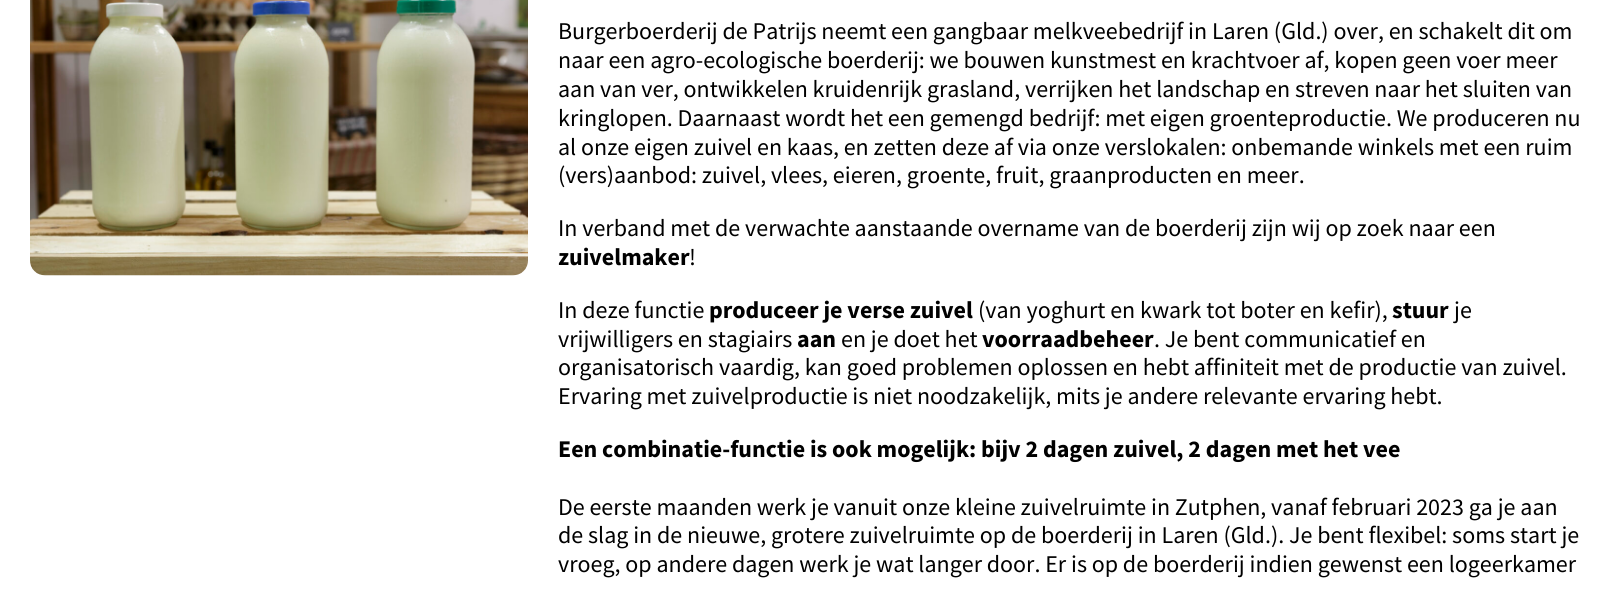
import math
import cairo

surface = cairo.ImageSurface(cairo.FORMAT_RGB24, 1614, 592)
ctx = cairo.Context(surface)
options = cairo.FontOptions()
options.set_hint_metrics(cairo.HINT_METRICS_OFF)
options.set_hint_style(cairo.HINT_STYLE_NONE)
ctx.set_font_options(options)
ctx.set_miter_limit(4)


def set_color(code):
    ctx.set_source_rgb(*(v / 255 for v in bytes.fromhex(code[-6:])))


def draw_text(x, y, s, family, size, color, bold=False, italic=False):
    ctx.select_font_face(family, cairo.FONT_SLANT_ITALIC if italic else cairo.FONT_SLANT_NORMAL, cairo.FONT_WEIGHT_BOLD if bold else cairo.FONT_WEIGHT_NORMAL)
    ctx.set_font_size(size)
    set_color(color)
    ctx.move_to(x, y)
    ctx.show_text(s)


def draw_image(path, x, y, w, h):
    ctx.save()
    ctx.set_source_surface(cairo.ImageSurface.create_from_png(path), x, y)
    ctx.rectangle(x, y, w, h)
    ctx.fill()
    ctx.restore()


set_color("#ffffff")
ctx.paint()
draw_image("assets/img1.png", 30, 0, 498, 276)
draw_text(558, 39, "Burgerboerderij de Patrijs neemt een gangbaar melkveebedrijf in Laren (Gld.) over, en schakelt dit om", "Source Sans Pro", 24, "#000000")
draw_text(558, 68, "naar een agro-ecologische boerderij: we bouwen kunstmest en krachtvoer af, kopen geen voer meer", "Source Sans Pro", 24, "#000000")
draw_text(558, 97, "aan van ver, ontwikkelen kruidenrijk grasland, verrijken het landschap en streven naar het sluiten van", "Source Sans Pro", 24, "#000000")
draw_text(558, 126, "kringlopen. Daarnaast wordt het een gemengd bedrijf: met eigen groenteproductie. We produceren nu", "Source Sans Pro", 24, "#000000")
draw_text(558, 155, "al onze eigen zuivel en kaas, en zetten deze af via onze verslokalen: onbemande winkels met een ruim", "Source Sans Pro", 24, "#000000")
draw_text(558, 183, "(vers)aanbod: zuivel, vlees, eieren, groente, fruit, graanproducten en meer.", "Source Sans Pro", 24, "#000000")
draw_text(558, 236, "In verband met de verwachte aanstaande overname van de boerderij zijn wij op zoek naar een", "Source Sans Pro", 24, "#000000")
draw_text(558, 265, "zuivelmaker", "Source Sans Pro", 24, "#000000", bold=True)
draw_text(689, 265, "!", "Source Sans Pro", 24, "#000000")
draw_text(558, 318, "In deze functie", "Source Sans Pro", 24, "#000000")
draw_text(709, 318, "produceer je verse zuivel", "Source Sans Pro", 24, "#000000", bold=True)
draw_text(978, 318, "(van yoghurt en kwark tot boter en kefir),", "Source Sans Pro", 24, "#000000")
draw_text(1392, 318, "stuur", "Source Sans Pro", 24, "#000000", bold=True)
draw_text(1454, 318, "je", "Source Sans Pro", 24, "#000000")
draw_text(558, 347, "vrijwilligers en stagiairs", "Source Sans Pro", 24, "#000000")
draw_text(797, 347, "aan", "Source Sans Pro", 24, "#000000", bold=True)
draw_text(841, 347, "en je doet het", "Source Sans Pro", 24, "#000000")
draw_text(982, 347, "voorraadbeheer", "Source Sans Pro", 24, "#000000", bold=True)
draw_text(1154, 347, ". Je bent communicatief en", "Source Sans Pro", 24, "#000000")
draw_text(558, 375, "organisatorisch vaardig, kan goed problemen oplossen en hebt affiniteit met de productie van zuivel.", "Source Sans Pro", 24, "#000000")
draw_text(558, 404, "Ervaring met zuivelproductie is niet noodzakelijk, mits je andere relevante ervaring hebt.", "Source Sans Pro", 24, "#000000")
draw_text(558, 457, "Een combinatie-functie is ook mogelijk: bijv 2 dagen zuivel, 2 dagen met het vee", "Source Sans Pro", 24, "#000000", bold=True)
draw_text(558, 515, "De eerste maanden werk je vanuit onze kleine zuivelruimte in Zutphen, vanaf februari 2023 ga je aan", "Source Sans Pro", 24, "#000000")
draw_text(558, 543, "de slag in de nieuwe, grotere zuivelruimte op de boerderij in Laren (Gld.). Je bent flexibel: soms start je", "Source Sans Pro", 24, "#000000")
draw_text(558, 572, "vroeg, op andere dagen werk je wat langer door. Er is op de boerderij indien gewenst een logeerkamer", "Source Sans Pro", 24, "#000000")
surface.write_to_png("output.png")
